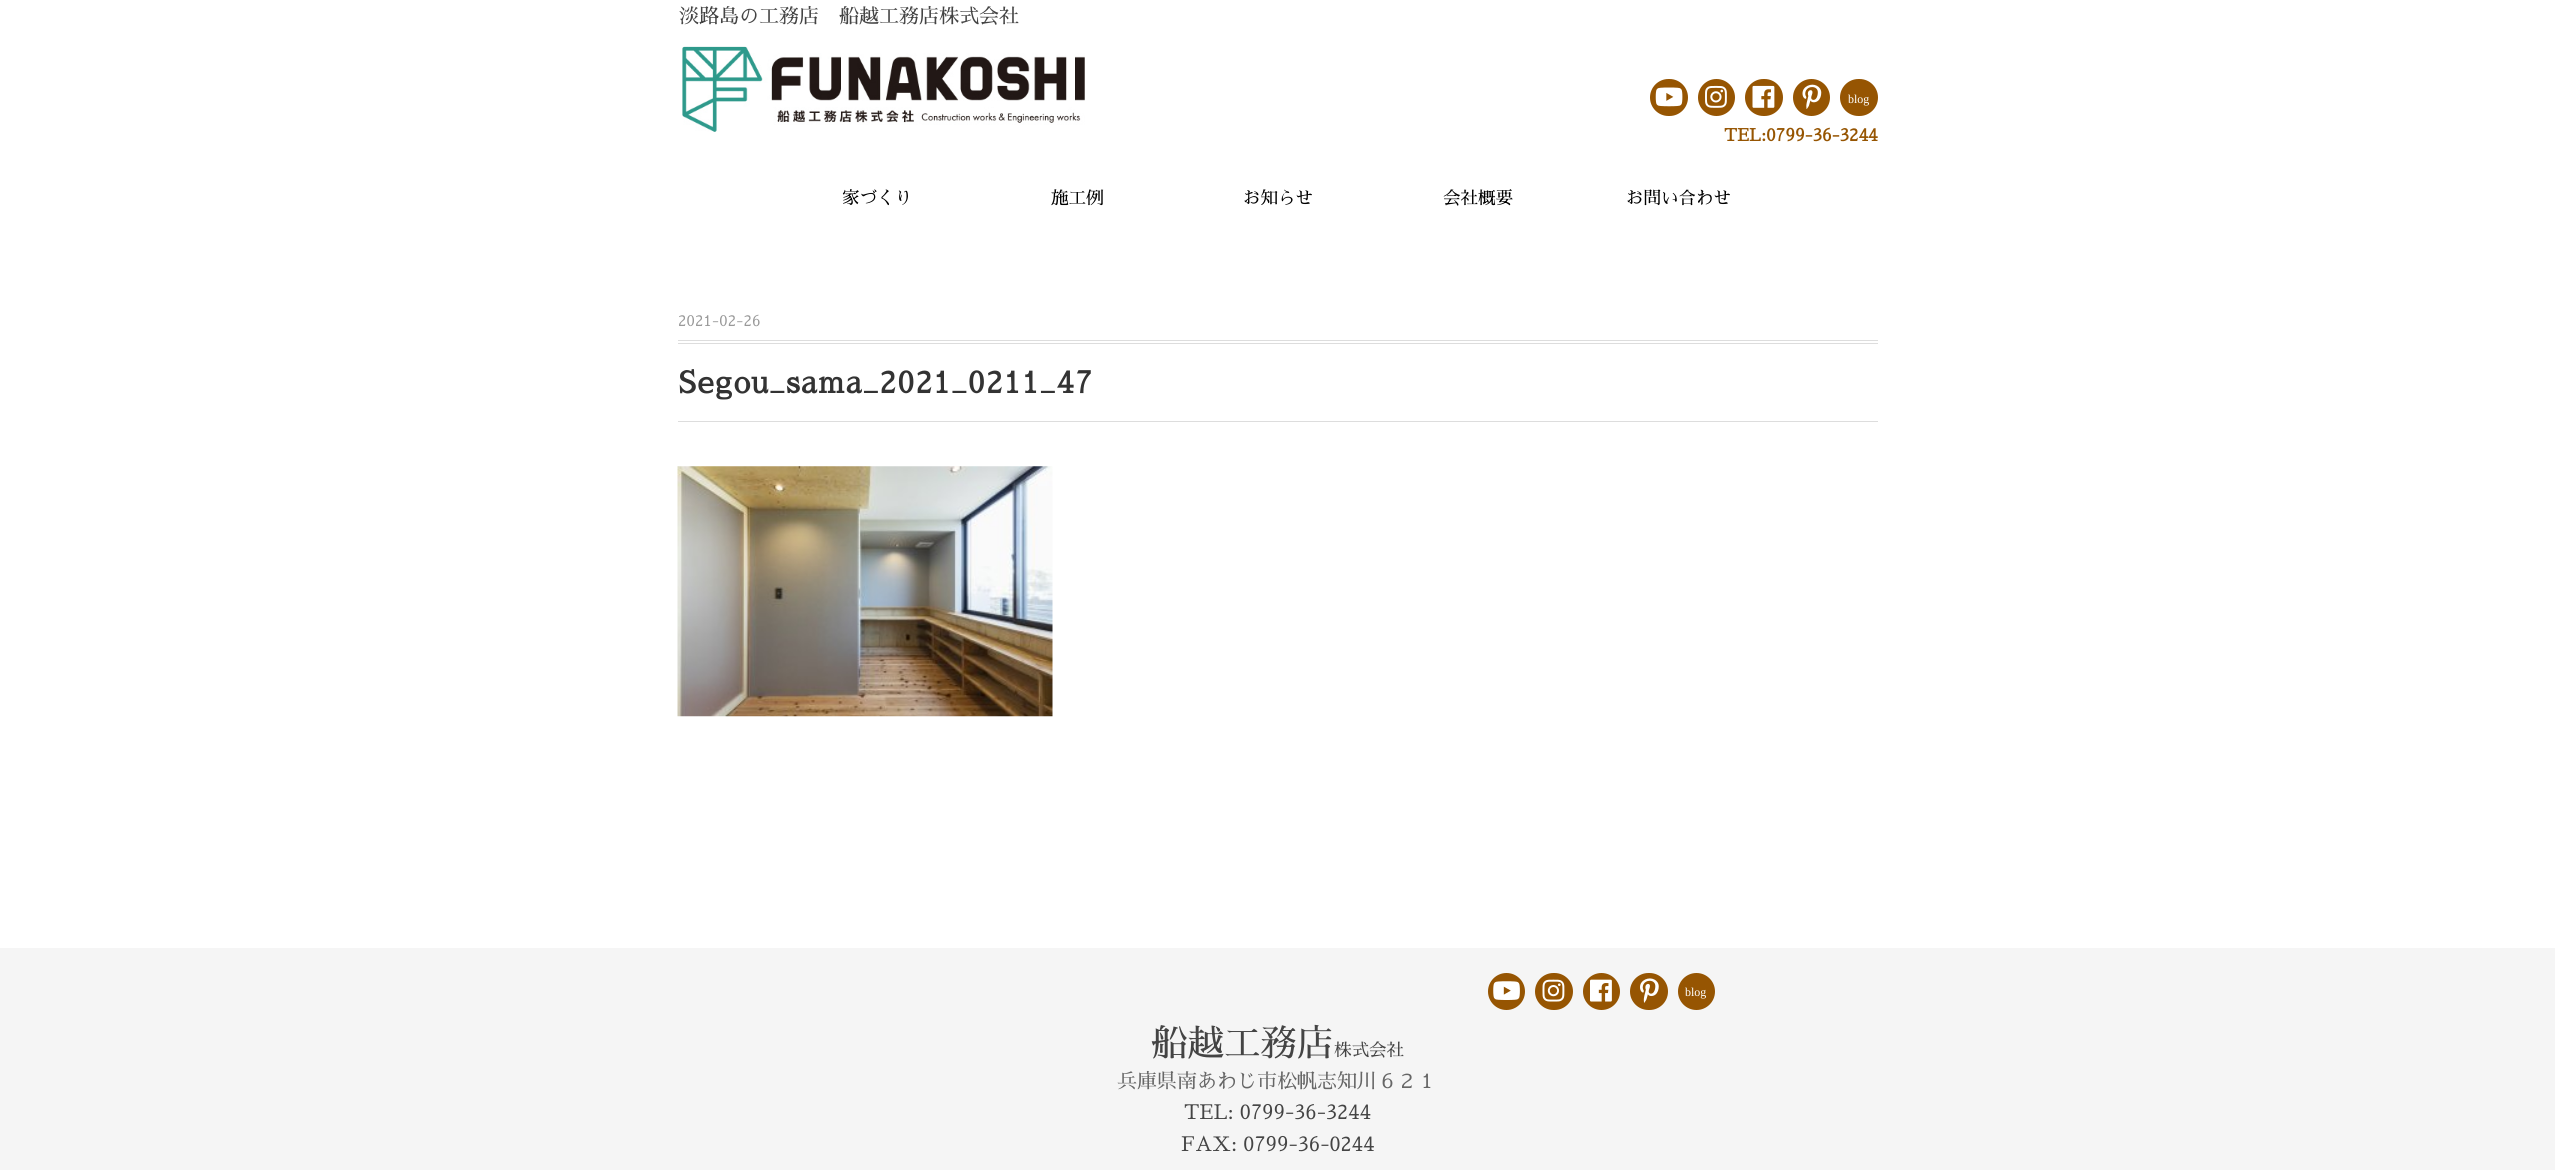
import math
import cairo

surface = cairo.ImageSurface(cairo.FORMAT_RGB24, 2555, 1170)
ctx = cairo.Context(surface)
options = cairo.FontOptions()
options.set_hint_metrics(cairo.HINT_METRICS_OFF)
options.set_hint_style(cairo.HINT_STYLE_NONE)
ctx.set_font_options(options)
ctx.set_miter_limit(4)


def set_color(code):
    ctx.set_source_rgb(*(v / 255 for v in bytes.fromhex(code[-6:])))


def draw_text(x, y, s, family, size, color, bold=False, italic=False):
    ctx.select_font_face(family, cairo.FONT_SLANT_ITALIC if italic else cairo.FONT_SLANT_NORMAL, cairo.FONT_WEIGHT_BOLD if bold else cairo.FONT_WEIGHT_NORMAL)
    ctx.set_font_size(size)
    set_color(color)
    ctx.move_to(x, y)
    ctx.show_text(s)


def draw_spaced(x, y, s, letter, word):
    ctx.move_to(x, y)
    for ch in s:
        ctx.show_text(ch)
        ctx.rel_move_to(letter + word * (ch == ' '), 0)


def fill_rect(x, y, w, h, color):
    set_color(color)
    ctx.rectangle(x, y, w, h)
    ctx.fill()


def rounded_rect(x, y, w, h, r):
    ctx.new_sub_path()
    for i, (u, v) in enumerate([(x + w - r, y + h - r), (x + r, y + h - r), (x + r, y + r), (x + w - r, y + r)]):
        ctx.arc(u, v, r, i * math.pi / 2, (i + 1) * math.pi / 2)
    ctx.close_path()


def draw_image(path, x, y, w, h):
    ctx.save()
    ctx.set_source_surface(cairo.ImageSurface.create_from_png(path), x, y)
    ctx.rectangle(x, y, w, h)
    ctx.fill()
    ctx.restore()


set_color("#ffffff")
ctx.paint()
draw_text(679, 23, "淡路島の工務店　船越工務店株式会社", "Sawarabi Mincho", 20, "#444444")
draw_image("assets/img1.png", 682, 46, 403, 86)
set_color("#965502")
rounded_rect(1650, 79, 38, 37, 18.5)
ctx.fill()
draw_image("assets/img2.png", 1655, 87, 28, 20)
ctx.arc(1716.5, 97.5, 18.5, 0, 2 * math.pi)
ctx.fill()
draw_image("assets/img3.png", 1705, 85, 22, 23)
rounded_rect(1745, 79, 38, 37, 18.5)
ctx.fill()
draw_image("assets/img4.png", 1752, 85, 23, 23)
ctx.arc(1811.5, 97.5, 18.5, 0, 2 * math.pi)
ctx.fill()
draw_image("assets/img5.png", 1802, 84, 20, 25)
rounded_rect(1840, 79, 38, 37, 18.5)
ctx.fill()
draw_text(1848, 103, "blog", "Liberation Serif", 12, "#ffffff")
draw_text(1724, 141, "TEL:0799-36-3244", "Sawarabi Mincho", 17, "#965502", bold=True)
draw_text(842, 204, "家づくり", "Sawarabi Mincho", 17.5, "#000000")
draw_text(1051, 204, "施工例", "Sawarabi Mincho", 17.5, "#000000")
draw_text(1243, 204, "お知らせ", "Sawarabi Mincho", 17.5, "#000000")
draw_text(1443, 204, "会社概要", "Sawarabi Mincho", 17.5, "#000000")
draw_text(1626, 204, "お問い合わせ", "Sawarabi Mincho", 17.5, "#000000")
ctx.set_font_size(15)
set_color("#999999")
draw_spaced(678, 326, "2021-02-26", 0.25, 0)
fill_rect(678, 340, 1200, 1, "#dddddd")
fill_rect(678, 343, 1200, 1, "#dddddd")
fill_rect(678, 421, 1200, 1, "#dddddd")
ctx.select_font_face("Sawarabi Mincho", cairo.FONT_SLANT_NORMAL, cairo.FONT_WEIGHT_BOLD)
ctx.set_font_size(30)
set_color("#333333")
draw_spaced(678, 393, "Segou_sama_2021_0211_47", 1.5, 0)
draw_image("assets/img6.png", 677, 466, 376, 251)
fill_rect(0, 948, 2555, 222, "#f5f5f5")
set_color("#965502")
ctx.arc(1506.5, 991.5, 18.5, 0, 2 * math.pi)
ctx.fill()
draw_image("assets/img7.png", 1493, 981, 27, 19)
rounded_rect(1535, 973, 38, 37, 18.5)
ctx.fill()
draw_image("assets/img8.png", 1542, 979, 23, 23)
ctx.arc(1601.5, 991.5, 18.5, 0, 2 * math.pi)
ctx.fill()
draw_image("assets/img9.png", 1590, 979, 22, 23)
rounded_rect(1630, 973, 38, 37, 18.5)
ctx.fill()
draw_image("assets/img10.png", 1640, 978, 19, 25)
ctx.arc(1696.5, 991.5, 18.5, 0, 2 * math.pi)
ctx.fill()
draw_text(1685, 996, "blog", "Liberation Serif", 12, "#ffffff")
draw_text(1151, 1056, "船越工務店", "Sawarabi Mincho", 36.5, "#444444")
draw_text(1334, 1056, "株式会社", "Sawarabi Mincho", 17.5, "#444444")
draw_text(1117, 1088, "兵庫県南あわじ市松帆志知川６２１", "Sawarabi Mincho", 20, "#666666")
draw_text(1184, 1119, "TEL: 0799-36-3244", "Sawarabi Mincho", 20, "#444444")
draw_text(1181, 1151, "FAX: 0799-36-0244", "Sawarabi Mincho", 20, "#444444")
surface.write_to_png("output.png")
